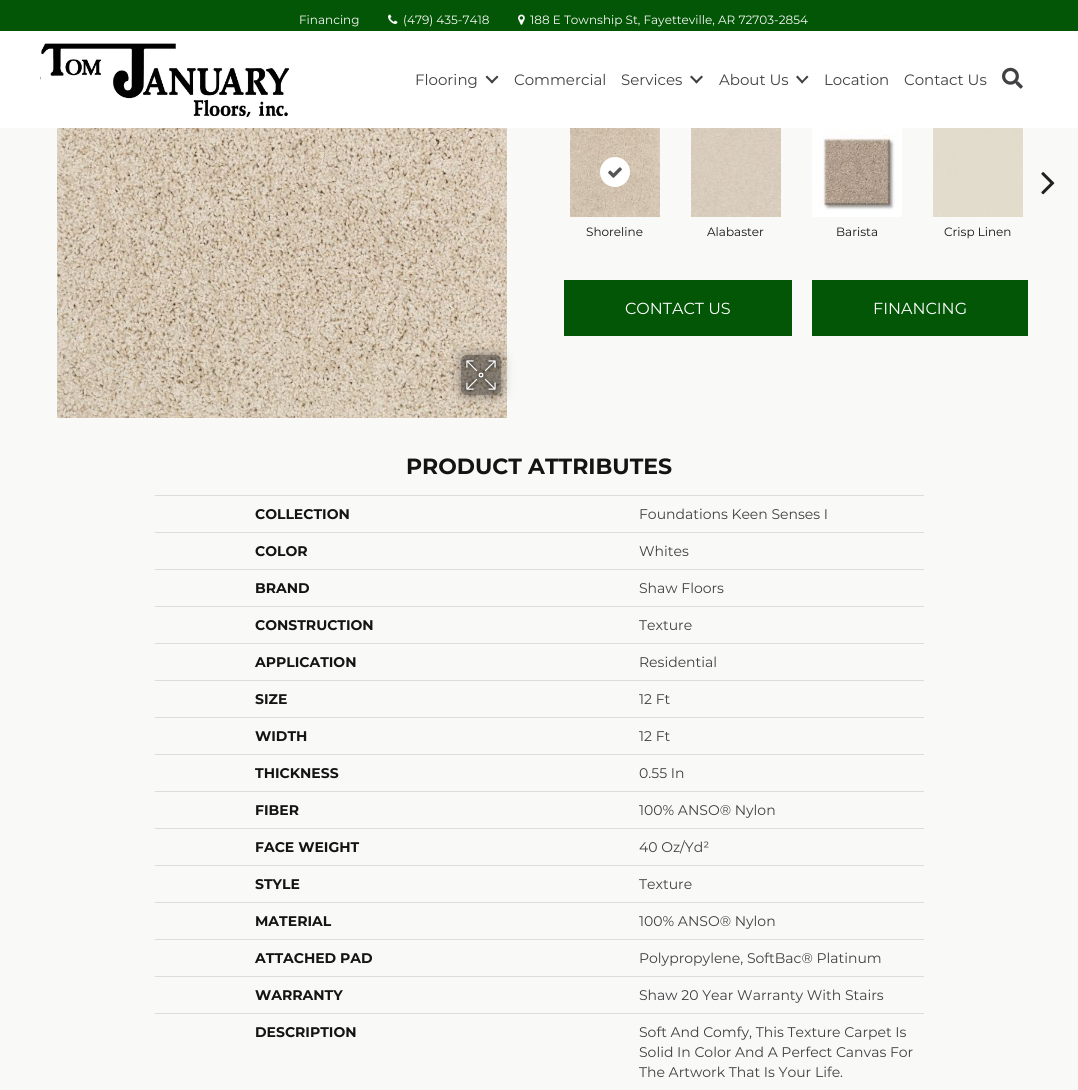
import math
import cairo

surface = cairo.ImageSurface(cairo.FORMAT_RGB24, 1078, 1090)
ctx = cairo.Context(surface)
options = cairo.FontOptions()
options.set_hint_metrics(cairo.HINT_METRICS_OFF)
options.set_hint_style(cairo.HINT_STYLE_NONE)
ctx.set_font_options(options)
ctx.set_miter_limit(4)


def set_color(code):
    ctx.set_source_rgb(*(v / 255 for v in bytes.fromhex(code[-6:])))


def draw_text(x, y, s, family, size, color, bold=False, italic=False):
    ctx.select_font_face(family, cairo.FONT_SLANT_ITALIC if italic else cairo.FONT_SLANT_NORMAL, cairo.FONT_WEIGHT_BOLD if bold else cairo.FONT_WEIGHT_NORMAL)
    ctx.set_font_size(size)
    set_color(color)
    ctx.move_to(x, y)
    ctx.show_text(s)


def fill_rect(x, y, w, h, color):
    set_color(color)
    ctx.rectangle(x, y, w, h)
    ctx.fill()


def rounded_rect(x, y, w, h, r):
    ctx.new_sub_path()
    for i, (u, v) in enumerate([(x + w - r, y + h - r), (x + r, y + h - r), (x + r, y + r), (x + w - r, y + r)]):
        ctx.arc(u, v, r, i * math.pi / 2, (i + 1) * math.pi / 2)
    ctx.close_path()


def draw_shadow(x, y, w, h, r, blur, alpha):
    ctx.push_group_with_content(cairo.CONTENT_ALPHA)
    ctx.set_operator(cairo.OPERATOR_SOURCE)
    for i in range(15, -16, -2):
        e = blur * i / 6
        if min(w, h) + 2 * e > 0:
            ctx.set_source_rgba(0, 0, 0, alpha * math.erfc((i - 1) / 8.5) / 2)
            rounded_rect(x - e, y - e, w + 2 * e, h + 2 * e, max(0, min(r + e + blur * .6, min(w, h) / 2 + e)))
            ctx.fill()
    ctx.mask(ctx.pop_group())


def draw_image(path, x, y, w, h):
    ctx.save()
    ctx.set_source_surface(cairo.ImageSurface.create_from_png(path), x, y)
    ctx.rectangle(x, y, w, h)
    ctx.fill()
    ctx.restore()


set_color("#f9f9f8")
ctx.paint()
fill_rect(0, 0, 1078, 31, "#025605")
draw_text(299, 24, "Financing", "Montserrat", 12, "#f9f9f9")
draw_image("assets/img1.png", 388, 14, 10, 10)
draw_text(403, 24, "(479) 435-7418", "Montserrat", 12, "#f9f9f9")
draw_image("assets/img2.png", 518, 14, 7, 11)
draw_text(530, 24, "188 E Township St, Fayetteville, AR 72703-2854", "Montserrat", 12, "#f9f9f9")
fill_rect(0, 31, 1078, 97, "#ffffff")
draw_image("assets/img3.png", 40, 43, 250, 74)
draw_text(415, 85, "Flooring", "Montserrat", 15, "#414042")
ctx.new_path()
ctx.move_to(497, 75.5)
ctx.line_to(498.5, 77)
ctx.line_to(492, 83.5)
ctx.line_to(490.5, 82)
ctx.close_path()
ctx.fill()
ctx.new_path()
ctx.move_to(487, 75.5)
ctx.line_to(493.5, 82)
ctx.line_to(492, 83.5)
ctx.line_to(485.5, 77)
ctx.close_path()
ctx.fill()
draw_text(514, 85, "Commercial", "Montserrat", 15, "#414042")
draw_text(621, 85, "Services", "Montserrat", 15, "#414042")
ctx.new_path()
ctx.move_to(701.5, 75.5)
ctx.line_to(703, 77)
ctx.line_to(696.5, 83.5)
ctx.line_to(695, 82)
ctx.close_path()
ctx.fill()
ctx.new_path()
ctx.move_to(691.5, 75.5)
ctx.line_to(698, 82)
ctx.line_to(696.5, 83.5)
ctx.line_to(690, 77)
ctx.close_path()
ctx.fill()
draw_text(719, 85, "About Us", "Montserrat", 15, "#414042")
ctx.new_path()
ctx.move_to(807, 75.5)
ctx.line_to(808.5, 77)
ctx.line_to(802, 83.5)
ctx.line_to(801, 82)
ctx.close_path()
ctx.fill()
ctx.new_path()
ctx.move_to(797.5, 75.5)
ctx.line_to(803.5, 82)
ctx.line_to(802, 83.5)
ctx.line_to(796, 77)
ctx.close_path()
ctx.fill()
draw_text(824, 85, "Location", "Montserrat", 15, "#414042")
draw_text(904, 85, "Contact Us", "Montserrat", 15, "#414042")
draw_image("assets/img4.png", 1002, 67, 21, 22)
draw_image("assets/img5.png", 57, 128, 450, 290)
ctx.save()
ctx.set_fill_rule(cairo.FILL_RULE_EVEN_ODD)
ctx.new_path()
ctx.move_to(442, 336)
ctx.line_to(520, 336)
ctx.line_to(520, 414)
ctx.line_to(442, 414)
ctx.close_path()
ctx.move_to(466, 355)
ctx.line_to(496, 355)
ctx.curve_to(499, 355, 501, 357, 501, 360)
ctx.line_to(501, 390)
ctx.curve_to(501, 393, 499, 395, 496, 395)
ctx.line_to(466, 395)
ctx.curve_to(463, 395, 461, 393, 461, 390)
ctx.line_to(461, 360)
ctx.curve_to(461, 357, 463, 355, 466, 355)
ctx.close_path()
ctx.clip()
set_color("#000000")
draw_shadow(461, 355, 40, 40, 5, 6, 0.41)
ctx.restore()
ctx.set_source_rgba(0, 0, 0, 0.4)
rounded_rect(461, 355, 40, 40, 5)
ctx.fill()
draw_image("assets/img6.png", 462, 356, 38, 38)
draw_image("assets/img7.png", 1041, 172, 14, 23)
draw_image("assets/img8.png", 570, 128, 90, 89)
set_color("#ffffff")
ctx.arc(615, 172, 15, 0, 2 * math.pi)
ctx.fill()
draw_image("assets/img9.png", 608, 167, 14, 11)
draw_text(586, 236, "Shoreline", "Montserrat", 12, "#141414")
draw_image("assets/img10.png", 691, 128, 90, 89)
draw_text(707, 236, "Alabaster", "Montserrat", 12, "#141414")
draw_image("assets/img11.png", 812, 128, 90, 89)
draw_text(836, 236, "Barista", "Montserrat", 12, "#141414")
draw_image("assets/img12.png", 933, 128, 90, 89)
draw_text(944, 236, "Crisp Linen", "Montserrat", 12, "#141414")
fill_rect(564, 280, 228, 56, "#025605")
draw_text(625, 314, "CONTACT US", "Montserrat", 16, "#ffffff")
fill_rect(812, 280, 216, 56, "#025605")
draw_text(873, 314, "FINANCING", "Montserrat", 16, "#ffffff")
draw_text(406, 474, "PRODUCT ATTRIBUTES", "Montserrat", 22, "#141414", bold=True)
draw_text(255, 519, "COLLECTION", "Montserrat", 14, "#141414", bold=True)
fill_rect(155, 495, 769, 1, "#dddddd")
draw_text(639, 519, "Foundations Keen Senses I", "Montserrat", 14, "#414042")
draw_text(255, 556, "COLOR", "Montserrat", 14, "#141414", bold=True)
fill_rect(155, 532, 769, 1, "#dddddd")
draw_text(639, 556, "Whites", "Montserrat", 14, "#414042")
draw_text(255, 593, "BRAND", "Montserrat", 14, "#141414", bold=True)
fill_rect(155, 569, 769, 1, "#dddddd")
draw_text(639, 593, "Shaw Floors", "Montserrat", 14, "#414042")
draw_text(255, 630, "CONSTRUCTION", "Montserrat", 14, "#141414", bold=True)
fill_rect(155, 606, 769, 1, "#dddddd")
draw_text(639, 630, "Texture", "Montserrat", 14, "#414042")
draw_text(255, 667, "APPLICATION", "Montserrat", 14, "#141414", bold=True)
fill_rect(155, 643, 769, 1, "#dddddd")
draw_text(639, 667, "Residential", "Montserrat", 14, "#414042")
draw_text(255, 704, "SIZE", "Montserrat", 14, "#141414", bold=True)
fill_rect(155, 680, 769, 1, "#dddddd")
draw_text(639, 704, "12 Ft", "Montserrat", 14, "#414042")
draw_text(255, 741, "WIDTH", "Montserrat", 14, "#141414", bold=True)
fill_rect(155, 717, 769, 1, "#dddddd")
draw_text(639, 741, "12 Ft", "Montserrat", 14, "#414042")
draw_text(255, 778, "THICKNESS", "Montserrat", 14, "#141414", bold=True)
fill_rect(155, 754, 769, 1, "#dddddd")
draw_text(639, 778, "0.55 In", "Montserrat", 14, "#414042")
draw_text(255, 815, "FIBER", "Montserrat", 14, "#141414", bold=True)
fill_rect(155, 791, 769, 1, "#dddddd")
draw_text(639, 815, "100% ANSO® Nylon", "Montserrat", 14, "#414042")
draw_text(255, 852, "FACE WEIGHT", "Montserrat", 14, "#141414", bold=True)
fill_rect(155, 828, 769, 1, "#dddddd")
draw_text(639, 852, "40 Oz/Yd²", "Montserrat", 14, "#414042")
draw_text(255, 889, "STYLE", "Montserrat", 14, "#141414", bold=True)
fill_rect(155, 865, 769, 1, "#dddddd")
draw_text(639, 889, "Texture", "Montserrat", 14, "#414042")
draw_text(255, 926, "MATERIAL", "Montserrat", 14, "#141414", bold=True)
fill_rect(155, 902, 769, 1, "#dddddd")
draw_text(639, 926, "100% ANSO® Nylon", "Montserrat", 14, "#414042")
draw_text(255, 963, "ATTACHED PAD", "Montserrat", 14, "#141414", bold=True)
fill_rect(155, 939, 769, 1, "#dddddd")
draw_text(639, 963, "Polypropylene, SoftBac® Platinum", "Montserrat", 14, "#414042")
draw_text(255, 1000, "WARRANTY", "Montserrat", 14, "#141414", bold=True)
fill_rect(155, 976, 769, 1, "#dddddd")
draw_text(639, 1000, "Shaw 20 Year Warranty With Stairs", "Montserrat", 14, "#414042")
draw_text(255, 1037, "DESCRIPTION", "Montserrat", 14, "#141414", bold=True)
fill_rect(155, 1013, 769, 1, "#dddddd")
draw_text(639, 1037, "Soft And Comfy, This Texture Carpet Is", "Montserrat", 14, "#414042")
draw_text(639, 1057, "Solid In Color And A Perfect Canvas For", "Montserrat", 14, "#414042")
draw_text(639, 1077, "The Artwork That Is Your Life.", "Montserrat", 14, "#414042")
surface.write_to_png("output.png")
